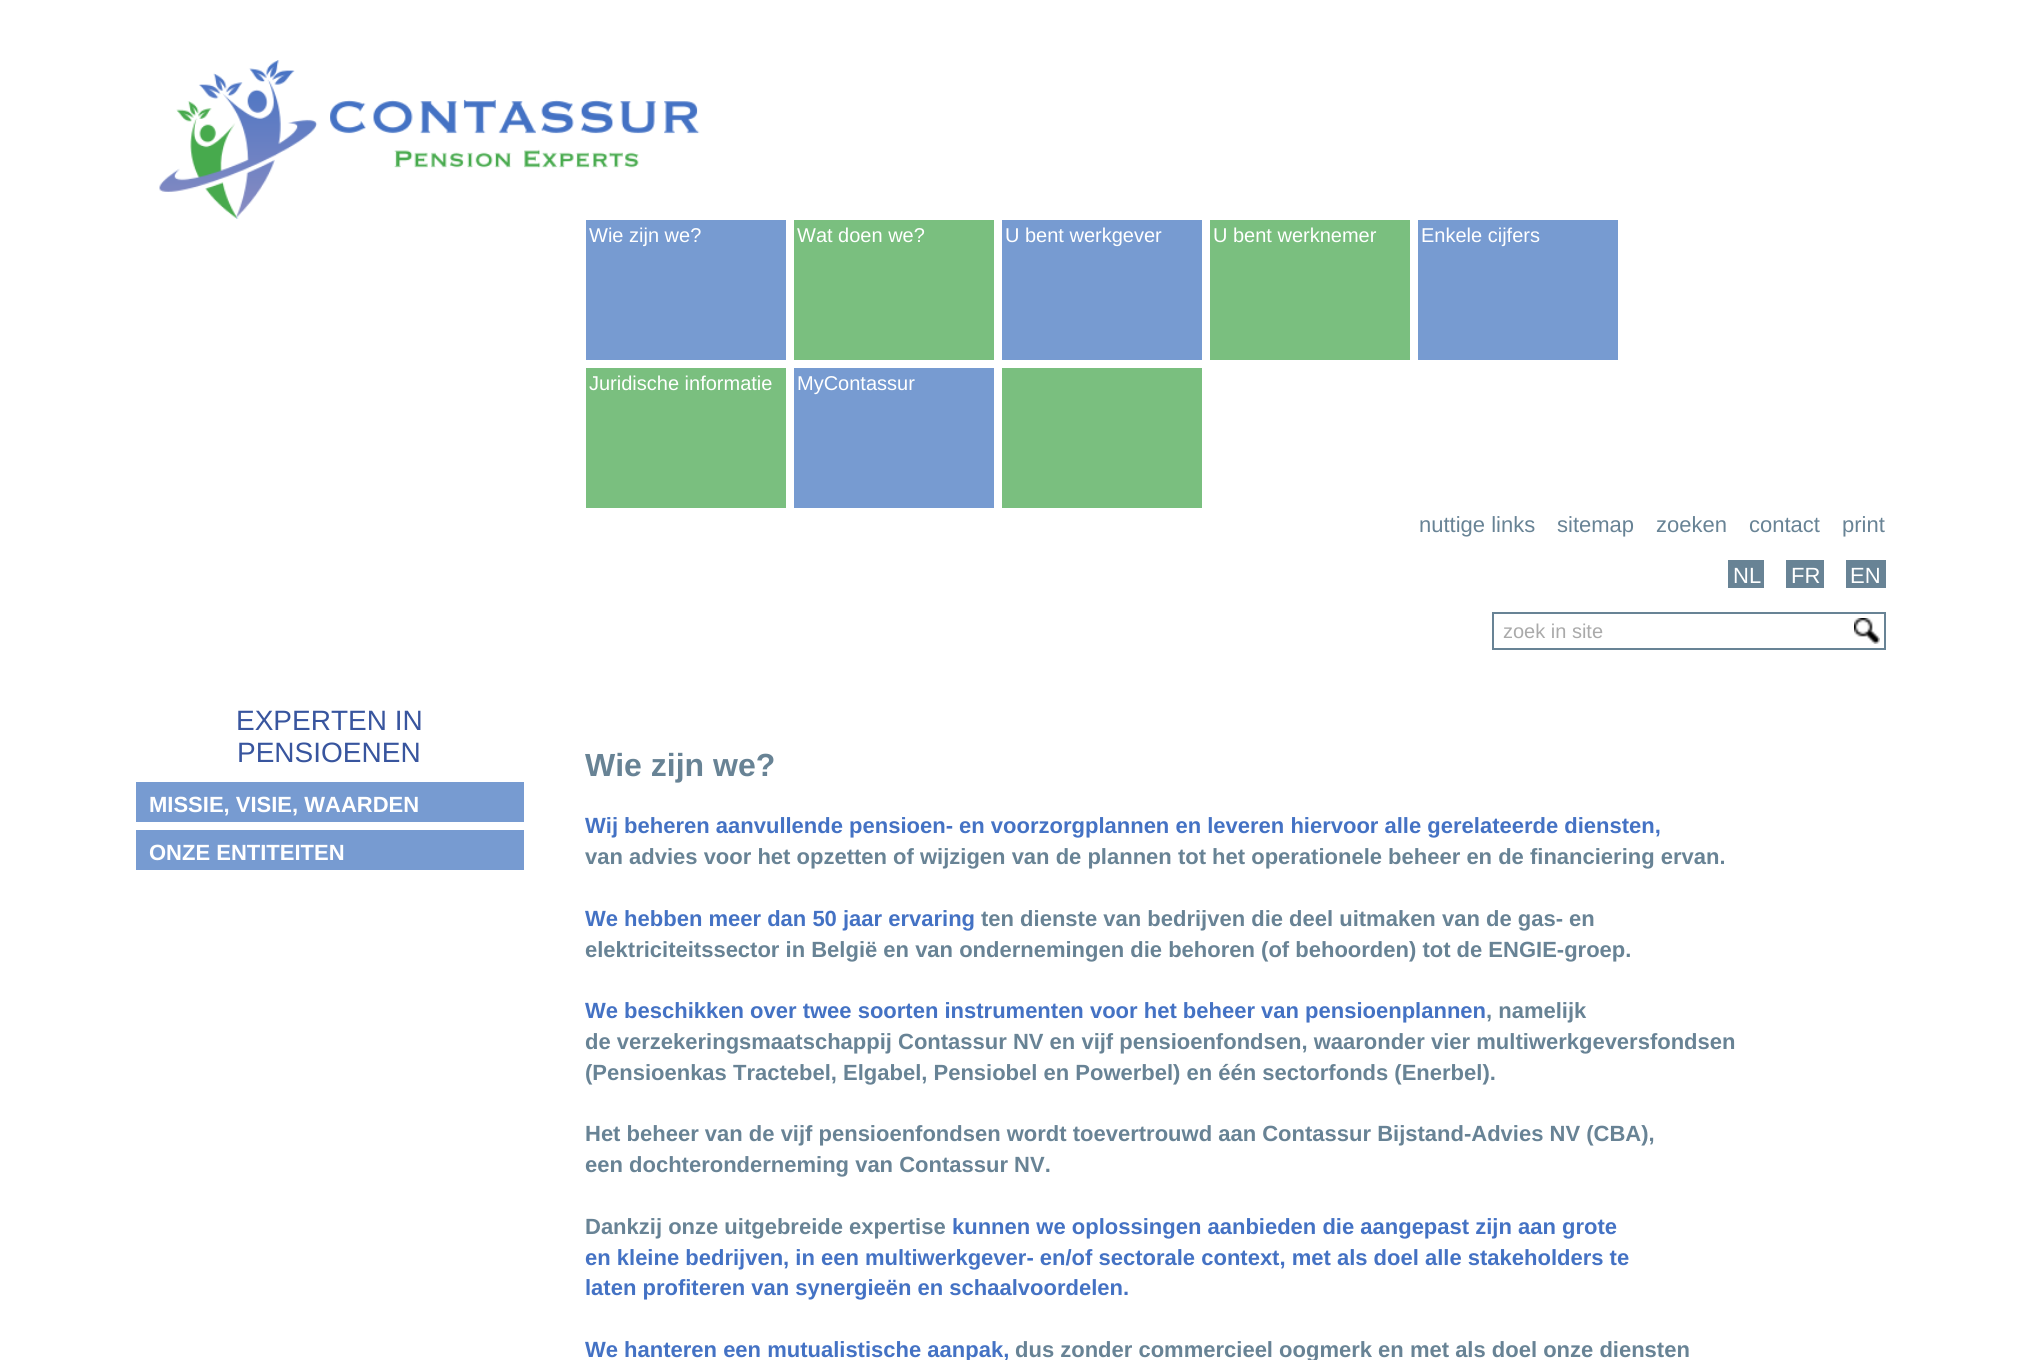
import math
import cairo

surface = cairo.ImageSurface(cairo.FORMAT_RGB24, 2019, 1360)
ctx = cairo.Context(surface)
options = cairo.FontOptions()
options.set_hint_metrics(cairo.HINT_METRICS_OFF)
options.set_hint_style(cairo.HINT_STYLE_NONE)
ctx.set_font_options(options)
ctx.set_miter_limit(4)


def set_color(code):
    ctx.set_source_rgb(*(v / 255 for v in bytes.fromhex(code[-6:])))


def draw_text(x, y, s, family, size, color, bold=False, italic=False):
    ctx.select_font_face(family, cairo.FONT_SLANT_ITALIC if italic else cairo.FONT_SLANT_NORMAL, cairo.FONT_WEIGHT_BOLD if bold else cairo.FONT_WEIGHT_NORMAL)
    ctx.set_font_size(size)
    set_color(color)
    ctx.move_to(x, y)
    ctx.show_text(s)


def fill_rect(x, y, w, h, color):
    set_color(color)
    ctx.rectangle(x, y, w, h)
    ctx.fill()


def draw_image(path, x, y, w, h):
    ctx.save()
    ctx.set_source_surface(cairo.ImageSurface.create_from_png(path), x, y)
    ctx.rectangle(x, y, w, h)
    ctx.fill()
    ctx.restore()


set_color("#ffffff")
ctx.paint()
draw_image("assets/img1.png", 159, 60, 541, 159)
fill_rect(586, 220, 200, 140, "#779bd1")
draw_text(589, 242, "Wie zijn we?", "Liberation Sans", 20, "#ffffff")
fill_rect(794, 220, 200, 140, "#7abf7f")
draw_text(797, 242, "Wat doen we?", "Liberation Sans", 20, "#ffffff")
fill_rect(1002, 220, 200, 140, "#779bd1")
draw_text(1005, 242, "U bent werkgever", "Liberation Sans", 20, "#ffffff")
fill_rect(1210, 220, 200, 140, "#7abf7f")
draw_text(1213, 242, "U bent werknemer", "Liberation Sans", 20, "#ffffff")
fill_rect(1418, 220, 200, 140, "#779bd1")
draw_text(1421, 242, "Enkele cijfers", "Liberation Sans", 20, "#ffffff")
fill_rect(586, 368, 200, 140, "#7abf7f")
draw_text(589, 390, "Juridische informatie", "Liberation Sans", 20, "#ffffff")
fill_rect(794, 368, 200, 140, "#779bd1")
draw_text(797, 390, "MyContassur", "Liberation Sans", 20, "#ffffff")
fill_rect(1002, 368, 200, 140, "#7abf7f")
draw_text(1419, 532, "nuttige links", "Liberation Sans", 22, "#688395")
draw_text(1557, 532, "sitemap", "Liberation Sans", 22, "#688395")
draw_text(1656, 532, "zoeken", "Liberation Sans", 22, "#688395")
draw_text(1749, 532, "contact", "Liberation Sans", 22, "#688395")
draw_text(1842, 532, "print", "Liberation Sans", 22, "#688395")
fill_rect(1728, 560, 36, 28, "#688395")
draw_text(1733, 583, "NL", "Liberation Sans", 22, "#ffffff")
fill_rect(1786, 560, 38, 28, "#688395")
draw_text(1791, 583, "FR", "Liberation Sans", 22, "#ffffff")
fill_rect(1846, 560, 40, 28, "#688395")
draw_text(1850, 583, "EN", "Liberation Sans", 22, "#ffffff")
draw_image("assets/img2.png", 1854, 618, 26, 26)
ctx.rectangle(1493, 613, 392, 36)
set_color("#688395")
ctx.stroke()
draw_text(1503, 638, "zoek in site", "Liberation Sans", 20, "#aaaaaa")
draw_text(236, 730, "EXPERTEN IN", "Liberation Sans", 28, "#38559e")
draw_text(237, 762, "PENSIOENEN", "Liberation Sans", 28, "#38559e")
fill_rect(136, 782, 388, 40, "#779bd1")
draw_text(149, 812, "MISSIE, VISIE, WAARDEN", "Liberation Sans", 22, "#ffffff", bold=True)
fill_rect(136, 830, 388, 40, "#779bd1")
draw_text(149, 860, "ONZE ENTITEITEN", "Liberation Sans", 22, "#ffffff", bold=True)
draw_text(585, 776, "Wie zijn we?", "Liberation Sans", 32, "#688395", bold=True)
draw_text(585, 833, "Wij beheren aanvullende pensioen- en voorzorgplannen en leveren hiervoor alle gerelateerde diensten,", "Liberation Sans", 22, "#4472c4", bold=True)
draw_text(585, 864, "van advies voor het opzetten of wijzigen van de plannen tot het operationele beheer en de financiering ervan.", "Liberation Sans", 22, "#688395", bold=True)
draw_text(585, 926, "We hebben meer dan 50 jaar ervaring", "Liberation Sans", 22, "#4472c4", bold=True)
draw_text(981, 926, "ten dienste van bedrijven die deel uitmaken van de gas- en", "Liberation Sans", 22, "#688395", bold=True)
draw_text(585, 957, "elektriciteitssector in België en van ondernemingen die behoren (of behoorden) tot de ENGIE-groep.", "Liberation Sans", 22, "#688395", bold=True)
draw_text(585, 1018, "We beschikken over twee soorten instrumenten voor het beheer van pensioenplannen", "Liberation Sans", 22, "#4472c4", bold=True)
draw_text(1486, 1018, ", namelijk", "Liberation Sans", 22, "#688395", bold=True)
draw_text(585, 1049, "de verzekeringsmaatschappij Contassur NV en vijf pensioenfondsen, waaronder vier multiwerkgeversfondsen", "Liberation Sans", 22, "#688395", bold=True)
draw_text(585, 1080, "(Pensioenkas Tractebel, Elgabel, Pensiobel en Powerbel) en één sectorfonds (Enerbel).", "Liberation Sans", 22, "#688395", bold=True)
draw_text(585, 1141, "Het beheer van de vijf pensioenfondsen wordt toevertrouwd aan Contassur Bijstand-Advies NV (CBA),", "Liberation Sans", 22, "#688395", bold=True)
draw_text(585, 1172, "een dochteronderneming van Contassur NV.", "Liberation Sans", 22, "#688395", bold=True)
draw_text(585, 1234, "Dankzij onze uitgebreide expertise", "Liberation Sans", 22, "#688395", bold=True)
draw_text(952, 1234, "kunnen we oplossingen aanbieden die aangepast zijn aan grote", "Liberation Sans", 22, "#4472c4", bold=True)
draw_text(585, 1265, "en kleine bedrijven, in een multiwerkgever- en/of sectorale context, met als doel alle stakeholders te", "Liberation Sans", 22, "#4472c4", bold=True)
draw_text(585, 1295, "laten profiteren van synergieën en schaalvoordelen.", "Liberation Sans", 22, "#4472c4", bold=True)
draw_text(585, 1357, "We hanteren een mutualistische aanpak,", "Liberation Sans", 22, "#4472c4", bold=True)
draw_text(1015, 1357, "dus zonder commercieel oogmerk en met als doel onze diensten", "Liberation Sans", 22, "#688395", bold=True)
surface.write_to_png("output.png")
